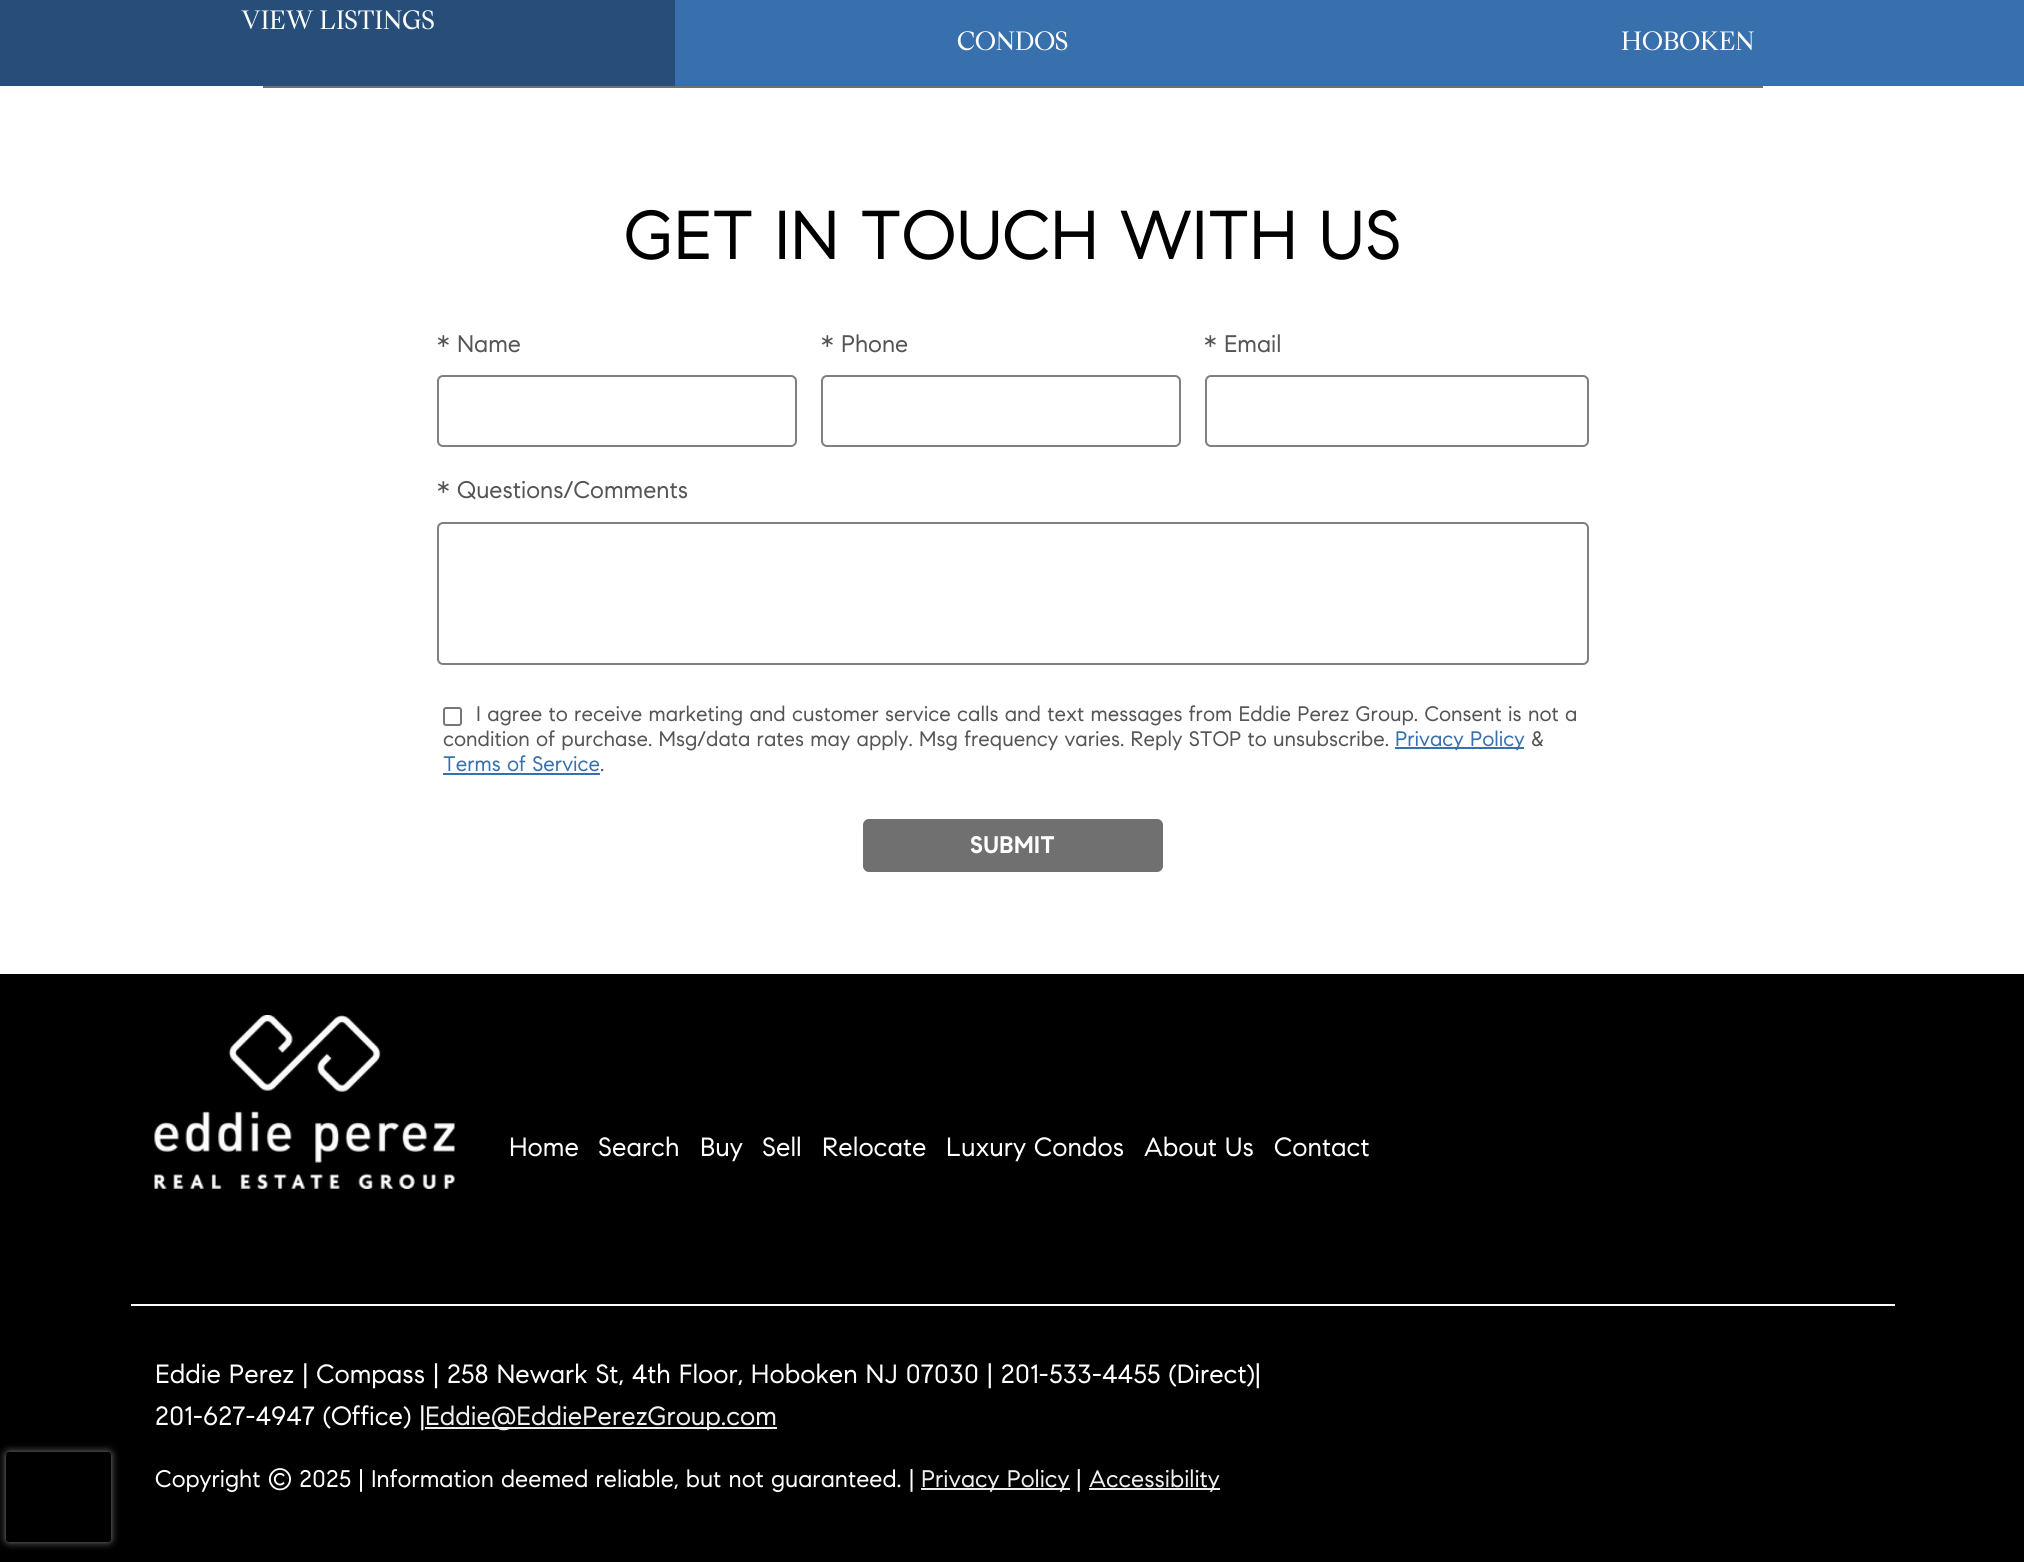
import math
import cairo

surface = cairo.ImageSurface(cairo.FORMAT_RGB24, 2024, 1562)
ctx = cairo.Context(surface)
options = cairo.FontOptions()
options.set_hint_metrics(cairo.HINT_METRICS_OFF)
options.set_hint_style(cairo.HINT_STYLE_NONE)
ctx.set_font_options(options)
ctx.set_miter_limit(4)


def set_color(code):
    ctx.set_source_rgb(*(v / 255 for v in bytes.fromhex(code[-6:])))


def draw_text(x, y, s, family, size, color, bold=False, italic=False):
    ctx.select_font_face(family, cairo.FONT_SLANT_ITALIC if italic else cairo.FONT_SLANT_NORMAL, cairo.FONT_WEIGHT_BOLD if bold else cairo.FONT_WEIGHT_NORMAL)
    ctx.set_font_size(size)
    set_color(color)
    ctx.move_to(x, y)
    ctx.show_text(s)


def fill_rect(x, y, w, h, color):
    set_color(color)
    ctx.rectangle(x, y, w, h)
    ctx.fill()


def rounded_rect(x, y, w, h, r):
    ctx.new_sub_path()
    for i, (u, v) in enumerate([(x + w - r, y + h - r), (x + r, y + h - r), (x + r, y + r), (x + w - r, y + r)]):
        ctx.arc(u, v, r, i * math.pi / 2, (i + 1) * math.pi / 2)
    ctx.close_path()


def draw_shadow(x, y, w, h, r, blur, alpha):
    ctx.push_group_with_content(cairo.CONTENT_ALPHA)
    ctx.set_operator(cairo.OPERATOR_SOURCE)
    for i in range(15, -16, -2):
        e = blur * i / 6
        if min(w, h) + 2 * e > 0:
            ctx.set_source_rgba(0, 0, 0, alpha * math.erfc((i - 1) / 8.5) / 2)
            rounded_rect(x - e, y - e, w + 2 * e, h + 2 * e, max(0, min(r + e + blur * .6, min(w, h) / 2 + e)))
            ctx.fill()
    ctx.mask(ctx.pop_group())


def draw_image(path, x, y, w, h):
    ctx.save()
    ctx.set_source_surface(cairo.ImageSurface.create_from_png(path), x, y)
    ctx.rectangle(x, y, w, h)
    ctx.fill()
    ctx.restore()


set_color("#ffffff")
ctx.paint()
fill_rect(0, 974, 2024, 588, "#000000")
ctx.save()
ctx.set_fill_rule(cairo.FILL_RULE_EVEN_ODD)
ctx.new_path()
ctx.move_to(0, 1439)
ctx.line_to(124, 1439)
ctx.line_to(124, 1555)
ctx.line_to(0, 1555)
ctx.close_path()
ctx.move_to(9, 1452)
ctx.line_to(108, 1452)
ctx.curve_to(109.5, 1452, 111, 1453.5, 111, 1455)
ctx.line_to(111, 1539)
ctx.curve_to(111, 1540.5, 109.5, 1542, 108, 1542)
ctx.line_to(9, 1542)
ctx.curve_to(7.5, 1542, 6, 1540.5, 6, 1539)
ctx.line_to(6, 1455)
ctx.curve_to(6, 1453.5, 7.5, 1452, 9, 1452)
ctx.close_path()
ctx.clip()
set_color("#808080")
draw_shadow(6, 1452, 105, 90, 3, 4, 1)
ctx.restore()
fill_rect(675, 0, 1349, 86, "#3770ac")
fill_rect(0, 0, 675, 86, "#274e78")
draw_text(241, 29, "VIEW LISTINGS", "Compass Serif", 26.4, "#ffffff")
draw_text(957, 50, "CONDOS", "Compass Serif", 26.4, "#ffffff")
draw_text(1621, 50, "HOBOKEN", "Compass Serif", 26.4, "#ffffff")
fill_rect(263, 86, 1500, 2, "#707070")
draw_text(624, 259, "GET IN TOUCH WITH US", "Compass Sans", 69, "#000000")
draw_text(437, 352, "* Name", "Compass Sans", 24, "#555555")
rounded_rect(438, 376, 358, 70, 5)
set_color("#7f7f7f")
ctx.stroke()
draw_text(821, 352, "* Phone", "Compass Sans", 24, "#555555")
rounded_rect(822, 376, 358, 70, 5)
set_color("#7f7f7f")
ctx.stroke()
draw_text(1204, 352, "* Email", "Compass Sans", 24, "#555555")
rounded_rect(1206, 376, 382, 70, 5)
set_color("#7f7f7f")
ctx.stroke()
draw_text(437, 498, "* Questions/Comments", "Compass Sans", 24, "#555555")
rounded_rect(438, 523, 1150, 141, 5)
set_color("#7f7f7f")
ctx.stroke()
rounded_rect(444, 708, 17, 17, 2)
set_color("#767676")
ctx.stroke()
draw_text(476, 721, "I agree to receive marketing and customer service calls and text messages from Eddie Perez Group. Consent is not a", "Compass Sans", 21, "#555555")
draw_text(443, 746, "condition of purchase. Msg/data rates may apply. Msg frequency varies. Reply STOP to unsubscribe.", "Compass Sans", 21, "#555555")
fill_rect(1395, 747, 129, 2, "#3770ac")
draw_text(1395, 746, "Privacy Policy", "Compass Sans", 21, "#3770ac")
draw_text(1531, 746, "&", "Compass Sans", 21, "#555555")
draw_text(443, 771, "Terms of Service", "Compass Sans", 21, "#3770ac")
fill_rect(443, 773, 157, 2, "#3770ac")
draw_text(600, 771, ".", "Compass Sans", 21, "#555555")
set_color("#707070")
rounded_rect(863, 819, 300, 53, 6)
ctx.fill()
draw_text(970, 853, "SUBMIT", "Compass Sans", 24, "#ffffff", bold=True)
fill_rect(131, 1304, 1764, 2, "#ffffff")
draw_image("assets/img1.png", 154, 1015, 301, 174)
draw_text(509, 1156, "Home", "Compass Sans", 26.4, "#ffffff")
draw_text(598, 1156, "Search", "Compass Sans", 26.4, "#ffffff")
draw_text(700, 1156, "Buy", "Compass Sans", 26.4, "#ffffff")
draw_text(762, 1156, "Sell", "Compass Sans", 26.4, "#ffffff")
draw_text(822, 1156, "Relocate", "Compass Sans", 26.4, "#ffffff")
draw_text(946, 1156, "Luxury Condos", "Compass Sans", 26.4, "#ffffff")
draw_text(1144, 1156, "About Us", "Compass Sans", 26.4, "#ffffff")
draw_text(1274, 1156, "Contact", "Compass Sans", 26.4, "#ffffff")
draw_text(155, 1383, "Eddie Perez | Compass | 258 Newark St, 4th Floor, Hoboken NJ 07030 | 201-533-4455 (Direct)|", "Compass Sans", 26.4, "#ffffff")
draw_text(155, 1425, "201-627-4947 (Office) |", "Compass Sans", 26.4, "#ffffff")
fill_rect(425, 1427, 352, 2, "#efefef")
draw_text(425, 1425, "Eddie@EddiePerezGroup.com", "Compass Sans", 26.4, "#efefef")
draw_text(155, 1487, "Copyright © 2025 | Information deemed reliable, but not guaranteed. |", "Compass Sans", 24, "#ffffff")
fill_rect(921, 1488, 149, 2, "#efefef")
draw_text(921, 1487, "Privacy Policy", "Compass Sans", 24, "#efefef")
draw_text(1076, 1487, "|", "Compass Sans", 24, "#ffffff")
fill_rect(1089, 1488, 131, 2, "#efefef")
draw_text(1089, 1487, "Accessibility", "Compass Sans", 24, "#efefef")
surface.write_to_png("output.png")
